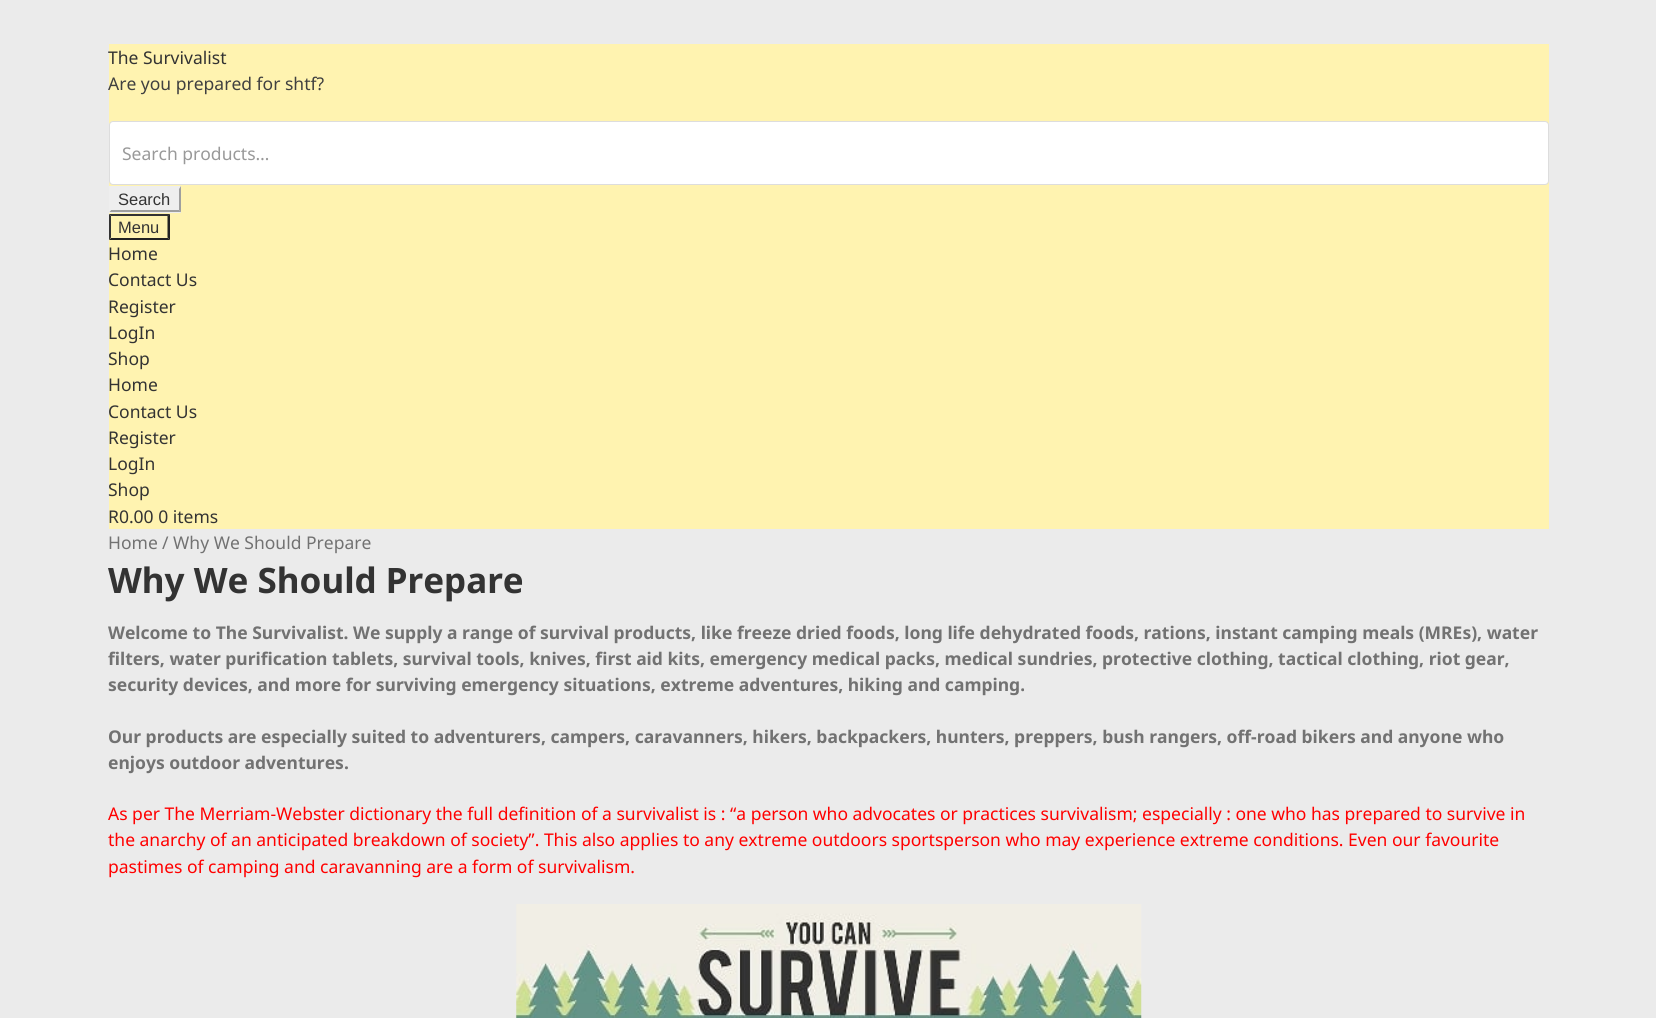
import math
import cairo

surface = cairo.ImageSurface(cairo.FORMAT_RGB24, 1656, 1018)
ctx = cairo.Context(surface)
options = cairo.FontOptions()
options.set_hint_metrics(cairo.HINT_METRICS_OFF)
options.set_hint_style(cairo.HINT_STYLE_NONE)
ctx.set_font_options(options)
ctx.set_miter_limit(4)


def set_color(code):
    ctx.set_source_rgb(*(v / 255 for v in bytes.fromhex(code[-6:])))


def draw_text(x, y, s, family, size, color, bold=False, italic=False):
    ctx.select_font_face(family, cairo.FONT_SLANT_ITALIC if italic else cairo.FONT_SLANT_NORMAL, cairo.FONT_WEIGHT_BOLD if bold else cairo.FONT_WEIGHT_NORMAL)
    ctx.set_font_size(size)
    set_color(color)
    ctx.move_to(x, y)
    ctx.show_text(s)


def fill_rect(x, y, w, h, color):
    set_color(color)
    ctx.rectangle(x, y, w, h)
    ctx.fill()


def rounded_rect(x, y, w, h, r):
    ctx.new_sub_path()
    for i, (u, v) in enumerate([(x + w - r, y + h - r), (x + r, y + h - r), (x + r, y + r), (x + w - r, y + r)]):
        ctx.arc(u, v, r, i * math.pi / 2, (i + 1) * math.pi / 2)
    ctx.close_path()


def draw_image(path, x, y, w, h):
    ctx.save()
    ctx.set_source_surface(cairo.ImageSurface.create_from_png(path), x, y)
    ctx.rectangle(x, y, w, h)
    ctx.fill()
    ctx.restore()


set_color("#ebebeb")
ctx.paint()
fill_rect(109, 44, 1440, 485, "#fff3b0")
draw_text(108, 64, "The Survivalist", "Noto Sans", 17.5, "#333333")
draw_text(108, 90, "Are you prepared for shtf?", "Noto Sans", 17.5, "#404040")
set_color("#ffffff")
rounded_rect(109.5, 121.5, 1439, 63, 3.5)
ctx.fill_preserve()
set_color("#dddddd")
ctx.set_line_width(1)
ctx.stroke()
draw_text(122, 160, "Search products…", "Noto Sans", 17.5, "#999999")
fill_rect(109, 186, 72, 27, "#eeeeee")
set_color("#9f9f9f")
ctx.new_path()
ctx.move_to(181, 186)
ctx.line_to(181, 212.5)
ctx.line_to(179, 210)
ctx.line_to(179, 189)
ctx.close_path()
ctx.fill()
ctx.new_path()
ctx.move_to(181, 212)
ctx.line_to(109, 212)
ctx.line_to(111, 210)
ctx.line_to(179, 210)
ctx.close_path()
ctx.fill()
set_color("#eeeeee")
ctx.new_path()
ctx.move_to(109, 212.5)
ctx.line_to(109, 186)
ctx.line_to(111, 189)
ctx.line_to(111, 210)
ctx.close_path()
ctx.fill()
draw_text(118, 205, "Search", "Liberation Sans", 16.5, "#333333")
ctx.new_path()
ctx.move_to(109, 214)
ctx.line_to(170, 214)
ctx.line_to(168, 216)
ctx.line_to(111, 216)
ctx.close_path()
ctx.fill()
set_color("#222222")
ctx.new_path()
ctx.move_to(170, 214)
ctx.line_to(170, 240)
ctx.line_to(167.5, 237.5)
ctx.line_to(167.5, 216)
ctx.close_path()
ctx.fill()
ctx.new_path()
ctx.move_to(170, 240)
ctx.line_to(109, 240)
ctx.line_to(111, 238)
ctx.line_to(168, 238)
ctx.close_path()
ctx.fill()
set_color("#333333")
ctx.new_path()
ctx.move_to(109, 240)
ctx.line_to(109, 214)
ctx.line_to(111, 216)
ctx.line_to(111, 237.5)
ctx.close_path()
ctx.fill()
draw_text(118, 233, "Menu", "Liberation Sans", 16.5, "#333333")
draw_text(108, 260, "Home", "Noto Sans", 17.5, "#333333")
draw_text(108, 286, "Contact Us", "Noto Sans", 17.5, "#333333")
draw_text(108, 313, "Register", "Noto Sans", 17.5, "#333333")
draw_text(108, 339, "LogIn", "Noto Sans", 17.5, "#333333")
draw_text(108, 365, "Shop", "Noto Sans", 17.5, "#333333")
draw_text(108, 391, "Home", "Noto Sans", 17.5, "#333333")
draw_text(108, 418, "Contact Us", "Noto Sans", 17.5, "#333333")
draw_text(108, 444, "Register", "Noto Sans", 17.5, "#333333")
draw_text(108, 470, "LogIn", "Noto Sans", 17.5, "#333333")
draw_text(108, 496, "Shop", "Noto Sans", 17.5, "#333333")
draw_text(108, 523, "R0.00 0 items", "Noto Sans", 17.5, "#333333")
draw_text(108, 549, "Home", "Noto Sans", 17.5, "#727272")
draw_text(162, 549, "/ Why We Should Prepare", "Noto Sans", 17.5, "#727272")
draw_text(108, 593, "Why We Should Prepare", "Noto Sans", 35, "#333333", bold=True)
draw_text(108, 639, "Welcome to The Survivalist. We supply a range of survival products, like freeze dried foods, long life dehydrated foods, rations, instant camping meals (MREs), water", "Noto Sans", 17.5, "#727272", bold=True)
draw_text(108, 665, "filters, water purification tablets, survival tools, knives, first aid kits, emergency medical packs, medical sundries, protective clothing, tactical clothing, riot gear,", "Noto Sans", 17.5, "#727272", bold=True)
draw_text(108, 691, "security devices, and more for surviving emergency situations, extreme adventures, hiking and camping.", "Noto Sans", 17.5, "#727272", bold=True)
draw_text(108, 743, "Our products are especially suited to adventurers, campers, caravanners, hikers, backpackers, hunters, preppers, bush rangers, off-road bikers and anyone who", "Noto Sans", 17.5, "#727272", bold=True)
draw_text(108, 769, "enjoys outdoor adventures.", "Noto Sans", 17.5, "#727272", bold=True)
draw_text(108, 820, "As per The Merriam-Webster dictionary the full definition of a survivalist is : “a person who advocates or practices survivalism; especially : one who has prepared to survive in", "Noto Sans", 17.5, "#ff0000")
draw_text(108, 846, "the anarchy of an anticipated breakdown of society”. This also applies to any extreme outdoors sportsperson who may experience extreme conditions. Even our favourite", "Noto Sans", 17.5, "#ff0000")
draw_text(108, 873, "pastimes of camping and caravanning are a form of survivalism.", "Noto Sans", 17.5, "#ff0000")
draw_image("assets/img1.png", 516, 904, 626, 114)
surface.write_to_png("output.png")
